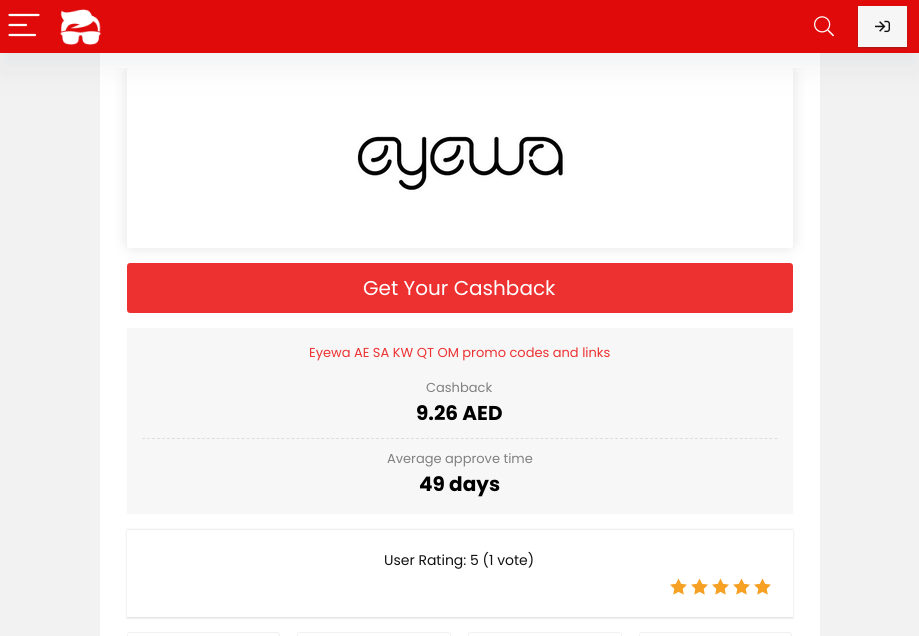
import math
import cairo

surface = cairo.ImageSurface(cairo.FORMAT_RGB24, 919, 636)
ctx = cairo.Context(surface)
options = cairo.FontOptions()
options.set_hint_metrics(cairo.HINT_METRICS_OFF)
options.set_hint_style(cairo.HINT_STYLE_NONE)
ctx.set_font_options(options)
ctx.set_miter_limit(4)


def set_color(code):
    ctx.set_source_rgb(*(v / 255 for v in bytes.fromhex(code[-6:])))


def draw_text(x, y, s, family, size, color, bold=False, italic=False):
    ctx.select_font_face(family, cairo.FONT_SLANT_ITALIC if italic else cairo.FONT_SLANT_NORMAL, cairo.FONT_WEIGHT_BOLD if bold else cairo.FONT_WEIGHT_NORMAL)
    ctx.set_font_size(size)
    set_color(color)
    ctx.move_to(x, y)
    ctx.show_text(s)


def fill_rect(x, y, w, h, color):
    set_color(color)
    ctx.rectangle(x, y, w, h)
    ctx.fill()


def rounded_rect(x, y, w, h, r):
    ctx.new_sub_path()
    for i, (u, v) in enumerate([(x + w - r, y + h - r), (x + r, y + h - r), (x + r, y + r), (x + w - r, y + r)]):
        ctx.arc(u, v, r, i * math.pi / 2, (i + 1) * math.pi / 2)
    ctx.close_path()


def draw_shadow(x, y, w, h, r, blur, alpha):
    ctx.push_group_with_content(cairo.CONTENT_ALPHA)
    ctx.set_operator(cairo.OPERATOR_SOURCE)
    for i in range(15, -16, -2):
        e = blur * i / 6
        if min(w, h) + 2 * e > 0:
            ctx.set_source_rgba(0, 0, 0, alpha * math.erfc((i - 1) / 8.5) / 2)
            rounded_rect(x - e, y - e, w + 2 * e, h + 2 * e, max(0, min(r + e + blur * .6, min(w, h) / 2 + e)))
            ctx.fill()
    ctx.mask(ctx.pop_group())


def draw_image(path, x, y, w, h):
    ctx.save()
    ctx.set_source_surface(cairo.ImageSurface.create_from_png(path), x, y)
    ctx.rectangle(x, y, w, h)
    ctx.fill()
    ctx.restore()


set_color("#f2f2f2")
ctx.paint()
fill_rect(100, 53, 720, 583, "#ffffff")
set_color("#777b92")
draw_shadow(0, 15, 919, 53, 0, 15, 0.1)
ctx.save()
ctx.rectangle(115, 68, 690, 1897)
ctx.clip()
ctx.set_fill_rule(cairo.FILL_RULE_EVEN_ODD)
ctx.new_path()
ctx.move_to(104, 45)
ctx.line_to(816, 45)
ctx.line_to(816, 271)
ctx.line_to(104, 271)
ctx.close_path()
ctx.move_to(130, 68)
ctx.line_to(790, 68)
ctx.curve_to(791.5, 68, 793, 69.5, 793, 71)
ctx.line_to(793, 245)
ctx.curve_to(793, 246.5, 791.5, 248, 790, 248)
ctx.line_to(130, 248)
ctx.curve_to(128.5, 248, 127, 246.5, 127, 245)
ctx.line_to(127, 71)
ctx.curve_to(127, 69.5, 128.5, 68, 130, 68)
ctx.close_path()
ctx.clip()
set_color("#000000")
draw_shadow(132, 73, 656, 170, 0, 9, 0.2)
ctx.restore()
fill_rect(0, 0, 919, 53, "#e00a0a")
ctx.new_path()
ctx.move_to(9.5, 15)
ctx.line_to(38.5, 15)
ctx.move_to(9.5, 25)
ctx.line_to(26, 25)
ctx.move_to(9.5, 35)
ctx.line_to(35, 35)
set_color("#ffffff")
ctx.set_line_width(2.2)
ctx.set_line_cap(cairo.LINE_CAP_ROUND)
ctx.stroke()
draw_image("assets/img1.png", 60, 9, 41, 36)
draw_image("assets/img2.png", 814, 16, 20, 21)
set_color("#000000")
draw_shadow(858, 7, 49, 41, 0, 1, 0.08)
set_color("#3c4043")
draw_shadow(858, 7, 49, 41, 0, 1, 0.3)
fill_rect(858, 6, 49, 41, "#f6f6f6")
draw_image("assets/img3.png", 875, 20, 15, 13)
draw_image("assets/img4.png", 356, 135, 209, 57)
set_color("#ed3131")
rounded_rect(127, 263, 666, 50, 3)
ctx.fill()
draw_text(363, 295, "Get Your Cashback", "Poppins", 20, "#ffffff")
fill_rect(127, 328, 666, 186, "#f7f7f7")
draw_text(309, 357, "Eyewa AE SA KW QT OM promo codes and links", "Poppins", 13, "#ed3131")
draw_text(426, 392, "Cashback", "Poppins", 13, "#808080")
draw_text(416, 420, "9.26 AED", "Poppins", 20, "#000000", bold=True)
ctx.new_path()
ctx.move_to(142, 438.5)
ctx.line_to(778, 438.5)
set_color("#dddddd")
ctx.set_line_width(1)
ctx.set_line_cap(cairo.LINE_CAP_BUTT)
ctx.set_dash([3, 1.98])
ctx.stroke()
draw_text(387, 463, "Average approve time", "Poppins", 13, "#808080")
draw_text(419, 491, "49 days", "Poppins", 20, "#000000", bold=True)
ctx.save()
ctx.set_fill_rule(cairo.FILL_RULE_EVEN_ODD)
ctx.new_path()
ctx.move_to(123, 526)
ctx.line_to(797, 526)
ctx.line_to(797, 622)
ctx.line_to(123, 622)
ctx.close_path()
ctx.move_to(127, 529)
ctx.line_to(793, 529)
ctx.line_to(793, 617)
ctx.line_to(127, 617)
ctx.close_path()
ctx.clip()
set_color("#000000")
draw_shadow(127, 530, 666, 88, 0, 1, 0.15)
ctx.restore()
fill_rect(127, 529, 666, 1, "#efefef")
draw_text(384, 565, "User Rating: 5 (1 vote)", "Poppins", 14, "#111111")
draw_image("assets/img5.png", 670, 578, 17, 17)
draw_image("assets/img5.png", 691, 578, 17, 17)
draw_image("assets/img5.png", 712, 578, 17, 17)
draw_image("assets/img5.png", 733, 578, 17, 17)
draw_image("assets/img5.png", 754, 578, 17, 17)
rounded_rect(127.5, 632.5, 152, 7, 2.5)
set_color("#f1f1f1")
ctx.set_dash([])
ctx.stroke()
rounded_rect(297.5, 632.5, 153, 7, 2.5)
ctx.stroke()
rounded_rect(468.5, 632.5, 153, 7, 2.5)
ctx.stroke()
rounded_rect(639.5, 632.5, 152, 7, 2.5)
ctx.stroke()
surface.write_to_png("output.png")
